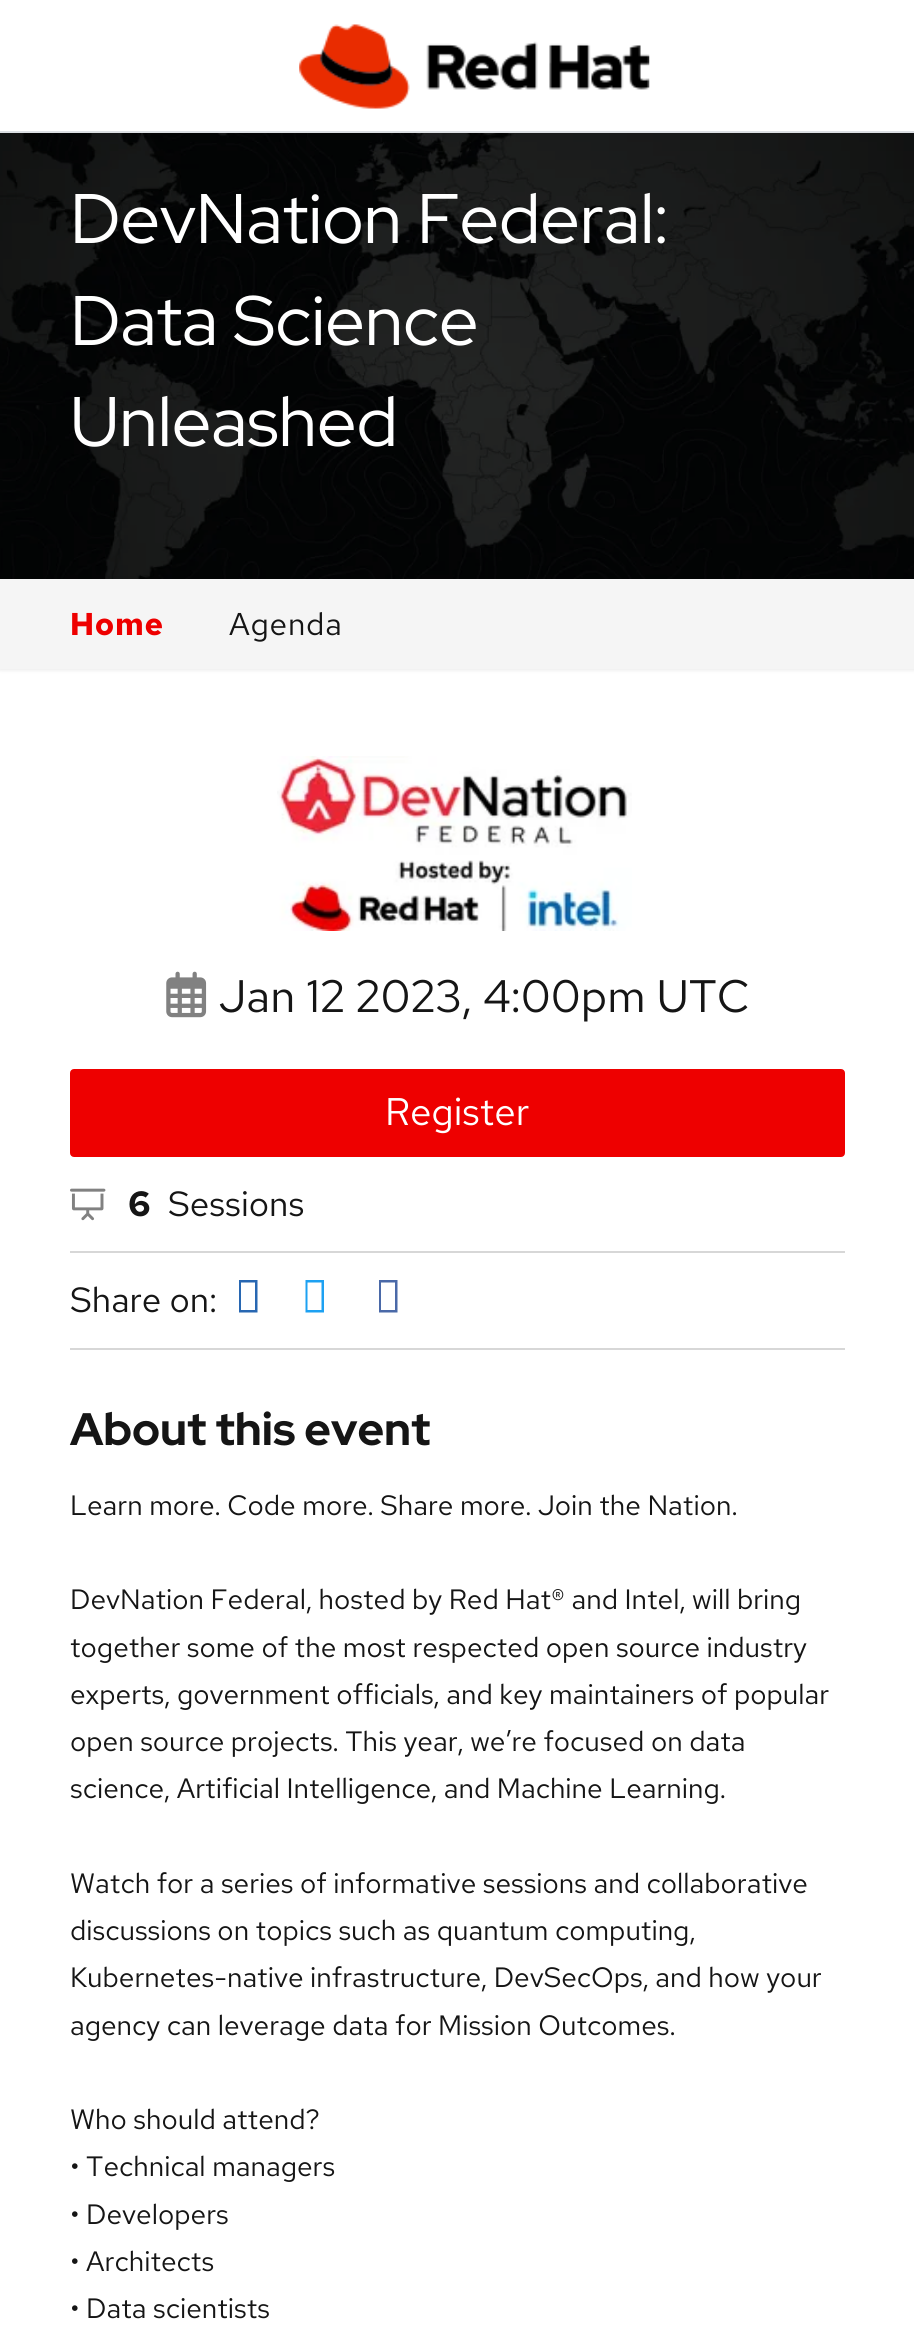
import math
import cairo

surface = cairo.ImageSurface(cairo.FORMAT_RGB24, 914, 2346)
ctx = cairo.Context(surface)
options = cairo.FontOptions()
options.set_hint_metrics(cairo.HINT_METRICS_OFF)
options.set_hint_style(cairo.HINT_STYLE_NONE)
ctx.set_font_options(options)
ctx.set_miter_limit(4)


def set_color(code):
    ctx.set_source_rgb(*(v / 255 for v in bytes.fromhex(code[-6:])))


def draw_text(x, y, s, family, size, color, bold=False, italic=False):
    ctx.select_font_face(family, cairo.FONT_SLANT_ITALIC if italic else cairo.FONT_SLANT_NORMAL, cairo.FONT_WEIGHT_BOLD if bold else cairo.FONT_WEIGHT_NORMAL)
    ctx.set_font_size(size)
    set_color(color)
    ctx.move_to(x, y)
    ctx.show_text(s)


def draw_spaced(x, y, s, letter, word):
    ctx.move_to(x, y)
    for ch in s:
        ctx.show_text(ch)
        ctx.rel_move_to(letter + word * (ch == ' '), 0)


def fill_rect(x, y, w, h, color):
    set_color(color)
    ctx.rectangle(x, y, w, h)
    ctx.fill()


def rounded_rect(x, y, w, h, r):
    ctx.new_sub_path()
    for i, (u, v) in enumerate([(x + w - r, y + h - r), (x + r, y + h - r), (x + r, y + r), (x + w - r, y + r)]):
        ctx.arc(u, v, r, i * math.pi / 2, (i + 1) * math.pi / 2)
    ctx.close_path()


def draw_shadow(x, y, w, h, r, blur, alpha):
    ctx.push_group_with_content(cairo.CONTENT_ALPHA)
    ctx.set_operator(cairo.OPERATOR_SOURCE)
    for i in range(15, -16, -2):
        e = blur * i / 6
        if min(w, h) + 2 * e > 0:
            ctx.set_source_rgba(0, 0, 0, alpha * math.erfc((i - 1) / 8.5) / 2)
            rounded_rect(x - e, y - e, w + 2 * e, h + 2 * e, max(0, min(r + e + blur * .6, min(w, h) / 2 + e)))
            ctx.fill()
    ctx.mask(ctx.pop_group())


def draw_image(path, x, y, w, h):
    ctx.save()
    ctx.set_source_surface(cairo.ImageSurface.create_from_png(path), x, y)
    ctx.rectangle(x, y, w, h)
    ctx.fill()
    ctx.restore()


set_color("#ffffff")
ctx.paint()
fill_rect(0, 131, 914, 2, "#dcdfe3")
draw_image("assets/img1.png", 299, 24, 351, 85)
draw_image("assets/img2.png", 0, 133, 914, 446)
draw_text(70, 243, "DevNation Federal:", "Red Hat Display", 70, "#ffffff")
draw_text(70, 345, "Data Science", "Red Hat Display", 70, "#ffffff")
draw_text(70, 446, "Unleashed", "Red Hat Display", 70, "#ffffff")
set_color("#000000")
draw_shadow(0, 579, 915, 90, 0, 2.5, 0.13)
fill_rect(0, 579, 914, 90, "#f5f5f5")
ctx.select_font_face("Red Hat Text", cairo.FONT_SLANT_NORMAL, cairo.FONT_WEIGHT_BOLD)
ctx.set_font_size(31.5)
set_color("#ee0000")
draw_spaced(70, 635, "Home", 0.75, 0)
ctx.select_font_face("Red Hat Text")
set_color("#151515")
draw_spaced(229, 635, "Agenda", 0.75, 0)
draw_image("assets/img3.png", 277, 756, 355, 175)
draw_image("assets/img4.png", 166, 971, 41, 47)
draw_text(219, 1012, "Jan 12 2023, 4:00pm UTC", "Red Hat Text", 45.5, "#151515")
set_color("#ee0000")
rounded_rect(71, 1070, 773, 86, 3)
ctx.fill_preserve()
ctx.stroke()
draw_text(385, 1125, "Register", "Red Hat Text", 38.5, "#ffffff")
fill_rect(70, 1251, 775, 2, "#d7d7d7")
draw_image("assets/img5.png", 70, 1188, 36, 33)
draw_text(128, 1216, "6", "Red Hat Text", 35, "#151515", bold=True)
draw_text(168, 1216, "Sessions", "Red Hat Text", 35, "#151515")
fill_rect(70, 1348, 775, 2, "#d7d7d7")
draw_text(70, 1312, "Share on:", "Red Hat Text", 35, "#151515")
set_color("#2867b2")
ctx.new_path()
ctx.move_to(239, 1312.5)
ctx.line_to(239, 1280)
ctx.line_to(257.5, 1280)
ctx.line_to(257.5, 1312.5)
ctx.close_path()
ctx.move_to(241, 1310)
ctx.line_to(255, 1310)
ctx.line_to(255, 1282.5)
ctx.line_to(241, 1282.5)
ctx.close_path()
ctx.fill()
set_color("#1da1f2")
ctx.new_path()
ctx.move_to(305.5, 1312.5)
ctx.line_to(305.5, 1280)
ctx.line_to(324, 1280)
ctx.line_to(324, 1312.5)
ctx.close_path()
ctx.move_to(307.5, 1310)
ctx.line_to(321.5, 1310)
ctx.line_to(321.5, 1282.5)
ctx.line_to(307.5, 1282.5)
ctx.close_path()
ctx.fill()
set_color("#4a69a8")
ctx.new_path()
ctx.move_to(379, 1312.5)
ctx.line_to(379, 1280)
ctx.line_to(397.5, 1280)
ctx.line_to(397.5, 1312.5)
ctx.close_path()
ctx.move_to(381, 1310)
ctx.line_to(395, 1310)
ctx.line_to(395, 1282.5)
ctx.line_to(381, 1282.5)
ctx.close_path()
ctx.fill()
draw_text(70, 1445, "About this event", "Red Hat Display", 45.5, "#151515", bold=True)
draw_text(70, 1515, "Learn more. Code more. Share more. Join the Nation.", "Red Hat Text", 28, "#151515")
draw_text(70, 1609, "DevNation Federal, hosted by Red Hat® and Intel, will bring", "Red Hat Text", 28, "#151515")
draw_text(70, 1657, "together some of the most respected open source industry", "Red Hat Text", 28, "#151515")
draw_text(70, 1704, "experts, government officials, and key maintainers of popular", "Red Hat Text", 28, "#151515")
draw_text(70, 1751, "open source projects. This year, we’re focused on data", "Red Hat Text", 28, "#151515")
draw_text(70, 1798, "science, Artificial Intelligence, and Machine Learning.", "Red Hat Text", 28, "#151515")
draw_text(70, 1893, "Watch for a series of informative sessions and collaborative", "Red Hat Text", 28, "#151515")
draw_text(70, 1940, "discussions on topics such as quantum computing,", "Red Hat Text", 28, "#151515")
draw_text(70, 1987, "Kubernetes-native infrastructure, DevSecOps, and how your", "Red Hat Text", 28, "#151515")
draw_text(70, 2035, "agency can leverage data for Mission Outcomes.", "Red Hat Text", 28, "#151515")
draw_text(70, 2129, "Who should attend?", "Red Hat Text", 28, "#151515")
draw_text(70, 2176, "• Technical managers", "Red Hat Text", 28, "#151515")
draw_text(70, 2224, "• Developers", "Red Hat Text", 28, "#151515")
draw_text(70, 2271, "• Architects", "Red Hat Text", 28, "#151515")
draw_text(70, 2318, "• Data scientists", "Red Hat Text", 28, "#151515")
surface.write_to_png("output.png")
